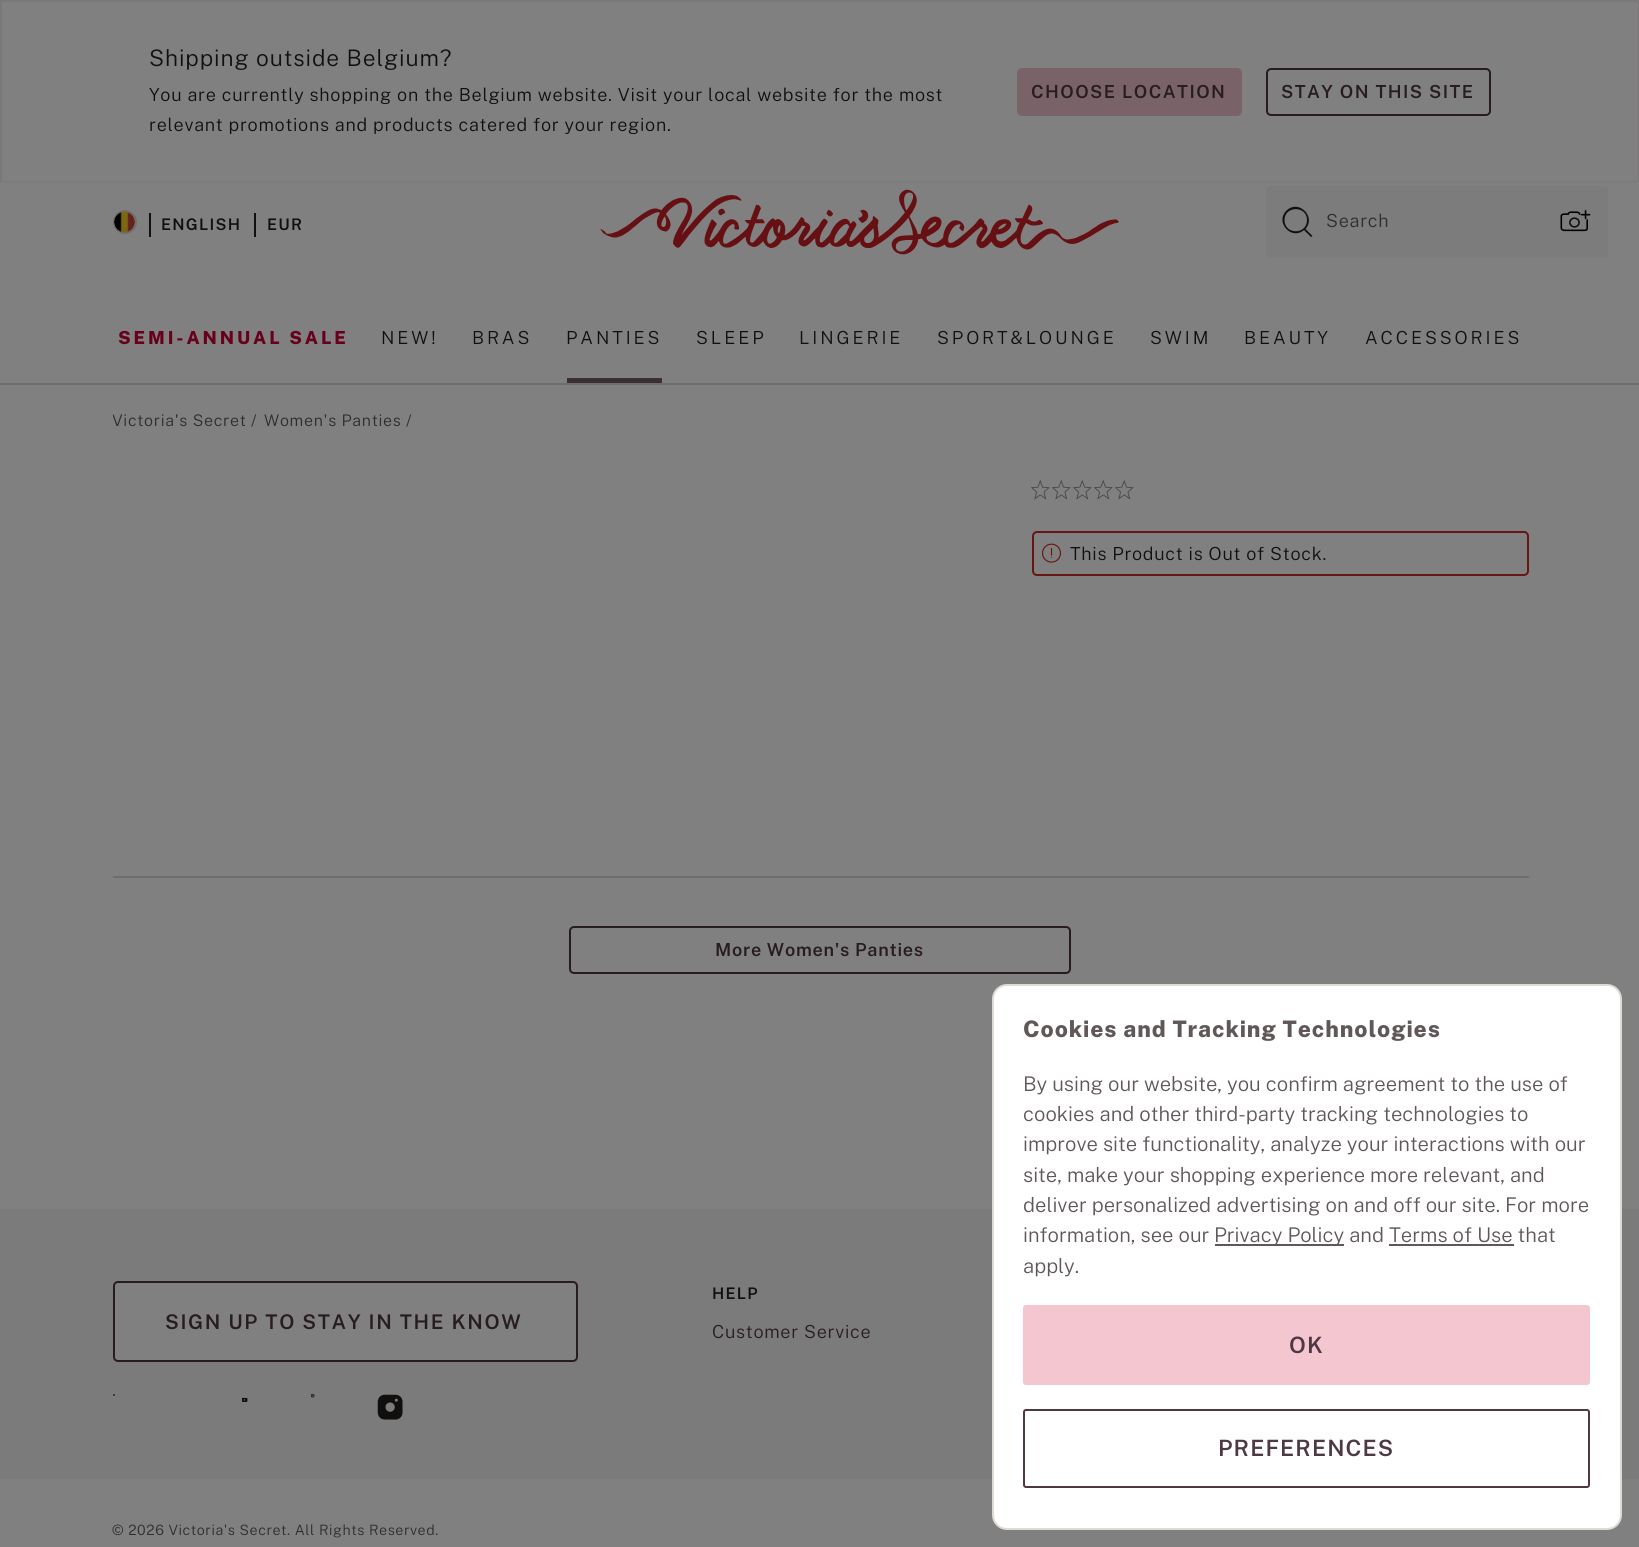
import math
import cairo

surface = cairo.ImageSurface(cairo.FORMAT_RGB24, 1639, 1547)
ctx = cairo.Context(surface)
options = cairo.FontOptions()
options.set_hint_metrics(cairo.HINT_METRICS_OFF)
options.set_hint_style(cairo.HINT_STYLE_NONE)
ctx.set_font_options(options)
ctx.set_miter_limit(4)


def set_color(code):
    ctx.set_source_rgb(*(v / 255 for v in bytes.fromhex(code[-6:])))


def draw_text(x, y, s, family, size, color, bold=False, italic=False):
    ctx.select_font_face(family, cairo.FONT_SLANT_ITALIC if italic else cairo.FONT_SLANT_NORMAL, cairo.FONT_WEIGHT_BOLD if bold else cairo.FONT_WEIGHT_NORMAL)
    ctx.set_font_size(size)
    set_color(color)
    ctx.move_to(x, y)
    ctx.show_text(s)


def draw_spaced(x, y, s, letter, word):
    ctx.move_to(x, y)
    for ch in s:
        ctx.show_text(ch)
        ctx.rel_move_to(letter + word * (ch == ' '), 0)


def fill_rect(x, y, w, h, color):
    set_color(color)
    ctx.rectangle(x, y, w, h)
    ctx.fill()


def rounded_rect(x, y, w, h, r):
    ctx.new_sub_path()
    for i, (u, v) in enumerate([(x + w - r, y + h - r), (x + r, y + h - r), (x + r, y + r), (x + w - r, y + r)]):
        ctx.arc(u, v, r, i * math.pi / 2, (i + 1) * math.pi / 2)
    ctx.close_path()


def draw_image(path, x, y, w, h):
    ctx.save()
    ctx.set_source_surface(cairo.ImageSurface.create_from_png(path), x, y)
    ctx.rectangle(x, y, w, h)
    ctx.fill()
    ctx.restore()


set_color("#808080")
ctx.paint()
fill_rect(0, 0, 1639, 3, "#7d7174")
set_color("#808080")
rounded_rect(0, 0, 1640, 183, 3)
ctx.fill()
ctx.new_path()
ctx.move_to(1638, 181.5)
ctx.line_to(1636.5, 182)
ctx.line_to(3, 182)
ctx.line_to(1.5, 181.5)
set_color("#7b7b7b")
ctx.set_line_width(1.5)
ctx.stroke()
ctx.new_path()
ctx.move_to(1.5, 181.5)
ctx.line_to(1, 180)
ctx.line_to(1, 3)
ctx.line_to(1.5, 1.5)
ctx.line_to(3, 1)
ctx.line_to(1636.5, 1)
ctx.line_to(1638, 1.5)
ctx.line_to(1639, 3)
ctx.line_to(1639, 180)
ctx.line_to(1638, 181.5)
set_color("#787675")
ctx.stroke()
ctx.select_font_face("Public Sans Light")
ctx.set_font_size(22.75)
set_color("#110f0f")
draw_spaced(149, 66, "Shipping outside Belgium?", 0.9, 0)
ctx.set_font_size(18)
draw_spaced(149, 101, "You are currently shopping on the Belgium website. Visit your local website for the most", 0.72, 0)
draw_spaced(149, 131, "relevant promotions and products catered for your region.", 0.72, 0)
set_color("#7a6368")
rounded_rect(1018, 69, 223, 46, 4)
ctx.fill_preserve()
ctx.set_line_width(2)
ctx.stroke()
ctx.select_font_face("Public Sans SemiBold")
set_color("#271c22")
draw_spaced(1031, 98, "CHOOSE LOCATION", 1.4, 0)
rounded_rect(1267, 69, 223, 46, 4)
ctx.stroke()
draw_spaced(1281, 98, "STAY ON THIS SITE", 1.4, 0)
ctx.new_path()
ctx.arc(125, 222, 11, 0, 2 * math.pi)
set_color("#706d6b")
ctx.stroke()
draw_image("assets/img1.png", 114, 211, 21, 22)
fill_rect(149, 213, 2, 24, "#110f0f")
ctx.set_font_size(16)
draw_spaced(161, 230, "ENGLISH", 1.25, 0)
fill_rect(254, 213, 2, 24, "#110f0f")
draw_spaced(267, 230, "EUR", 1.25, 0)
draw_image("assets/img2.png", 600, 189, 519, 66)
set_color("#7d7c7d")
rounded_rect(1266, 186, 342, 72, 3)
ctx.fill()
set_color("#110f0f")
ctx.set_fill_rule(cairo.FILL_RULE_EVEN_ODD)
ctx.new_path()
ctx.move_to(1307, 220)
ctx.curve_to(1307, 235, 1284.5, 235, 1284.5, 220)
ctx.curve_to(1284.5, 205.5, 1307, 205.5, 1307, 220)
ctx.close_path()
ctx.move_to(1304, 230)
ctx.curve_to(1291.5, 241, 1274.5, 222, 1286.5, 210.5)
ctx.curve_to(1298.5, 199, 1316.5, 216.5, 1305.5, 229)
ctx.line_to(1312.5, 236)
ctx.line_to(1311, 237)
ctx.close_path()
ctx.fill()
ctx.select_font_face("Public Sans Light")
ctx.set_font_size(18)
set_color("#302c2c")
draw_spaced(1326, 227, "Search", 0.72, 0)
draw_image("assets/img3.png", 1560, 210, 31, 22)
ctx.select_font_face("Public Sans ExtraBold")
set_color("#68001d")
draw_spaced(118, 344, "SEMI-ANNUAL SALE", 2.9, 0)
ctx.select_font_face("Public Sans Light")
set_color("#110f0f")
draw_spaced(381, 344, "NEW!", 2.9, 0)
draw_spaced(472, 344, "BRAS", 2.9, 0)
draw_spaced(566, 344, "PANTIES", 2.9, 0)
fill_rect(567, 378, 95, 5, "#393035")
set_color("#110f0f")
draw_spaced(696, 344, "SLEEP", 2.9, 0)
draw_spaced(799, 344, "LINGERIE", 2.9, 0)
draw_spaced(937, 344, "SPORT&LOUNGE", 2.9, 0)
draw_spaced(1150, 344, "SWIM", 2.9, 0)
draw_spaced(1244, 344, "BEAUTY", 2.9, 0)
draw_spaced(1365, 344, "ACCESSORIES", 2.9, 0)
fill_rect(0, 383, 1639, 2, "#706d6b")
ctx.save()
ctx.set_fill_rule(cairo.FILL_RULE_WINDING)
ctx.rectangle(113, 408, 1356, 24)
ctx.clip()
ctx.set_font_size(16)
set_color("#302c2c")
draw_spaced(112, 426, "Victoria's Secret", 0.7, 0)
ctx.restore()
ctx.set_font_size(16)
set_color("#302c2c")
draw_spaced(251, 426, "/", 0.7, 0)
draw_spaced(264, 426, "Women's Panties", 0.7, 0)
draw_spaced(406, 426, "/", 0.7, 0)
draw_image("assets/img4.png", 1031, 480, 19, 20)
draw_image("assets/img4.png", 1052, 480, 19, 20)
draw_image("assets/img4.png", 1073, 480, 19, 20)
draw_image("assets/img4.png", 1094, 480, 19, 20)
draw_image("assets/img4.png", 1115, 480, 19, 20)
rounded_rect(1033, 532, 495, 43, 4)
set_color("#671611")
ctx.stroke()
draw_image("assets/img5.png", 1042, 543, 19, 20)
ctx.set_font_size(18)
set_color("#110f0f")
draw_spaced(1070, 560, "This Product is Out of Stock.", 0.72, 0)
fill_rect(113, 876, 1416, 2, "#706d6b")
rounded_rect(570, 927, 500, 46, 4)
set_color("#271c22")
ctx.stroke()
ctx.select_font_face("Public Sans SemiBold")
draw_spaced(715, 956, "More Women's Panties", 0.72, 0)
fill_rect(0, 1209, 1639, 270, "#7b7b7b")
set_color("#808080")
rounded_rect(114, 1282, 463, 79, 4)
ctx.fill_preserve()
set_color("#271c22")
ctx.stroke()
ctx.set_font_size(20.25)
draw_spaced(165, 1329, "SIGN UP TO STAY IN THE KNOW", 1.6, 0)
draw_image("assets/img6.png", 113, 1394, 2, 2)
draw_image("assets/img7.png", 242, 1397, 6, 5)
draw_image("assets/img8.png", 311, 1394, 4, 4)
draw_image("assets/img9.png", 377, 1394, 26, 26)
ctx.set_font_size(16)
set_color("#110f0f")
draw_spaced(712, 1299, "HELP", 1.25, 0)
ctx.select_font_face("Public Sans Light")
ctx.set_font_size(18)
set_color("#271c22")
draw_spaced(712, 1338, "Customer Service", 0.72, 0)
ctx.set_font_size(14.25)
set_color("#302c2c")
draw_spaced(112, 1535, "© 2026 Victoria's Secret. All Rights Reserved.", 0.55, 0)
set_color("#ffffff")
rounded_rect(993, 985, 628, 544, 14)
ctx.fill_preserve()
set_color("#e0dad5")
ctx.stroke()
ctx.select_font_face("Public Sans ExtraBold")
ctx.set_font_size(22.75)
set_color("#605858")
draw_spaced(1023, 1037, "Cookies and Tracking Technologies", 0.9, 0)
draw_text(1023, 1091, "By using our website, you confirm agreement to the use of", "Public Sans Light", 20.25, "#605858")
draw_text(1023, 1121, "cookies and other third-party tracking technologies to", "Public Sans Light", 20.25, "#605858")
draw_text(1023, 1151, "improve site functionality, analyze your interactions with our", "Public Sans Light", 20.25, "#605858")
draw_text(1023, 1182, "site, make your shopping experience more relevant, and", "Public Sans Light", 20.25, "#605858")
draw_text(1023, 1212, "deliver personalized advertising on and off our site. For more", "Public Sans Light", 20.25, "#605858")
draw_text(1023, 1242, "information, see our", "Public Sans Light", 20.25, "#605858")
fill_rect(1215, 1244, 129, 2, "#605858")
draw_text(1214, 1242, "Privacy Policy and Terms of Use that", "Public Sans Light", 20.25, "#605858")
fill_rect(1389, 1244, 125, 2, "#605858")
draw_text(1023, 1273, "apply.", "Public Sans Light", 20.25, "#605858")
set_color("#f4c6cf")
rounded_rect(1024, 1306, 565, 78, 2)
ctx.fill_preserve()
ctx.stroke()
ctx.select_font_face("Public Sans SemiBold")
ctx.set_font_size(22.5)
set_color("#4e3844")
draw_spaced(1289, 1353, "OK", 1.1, 0)
rounded_rect(1024, 1410, 565, 77, 2)
ctx.stroke()
draw_spaced(1218, 1456, "PREFERENCES", 1.1, 0)
surface.write_to_png("output.png")
